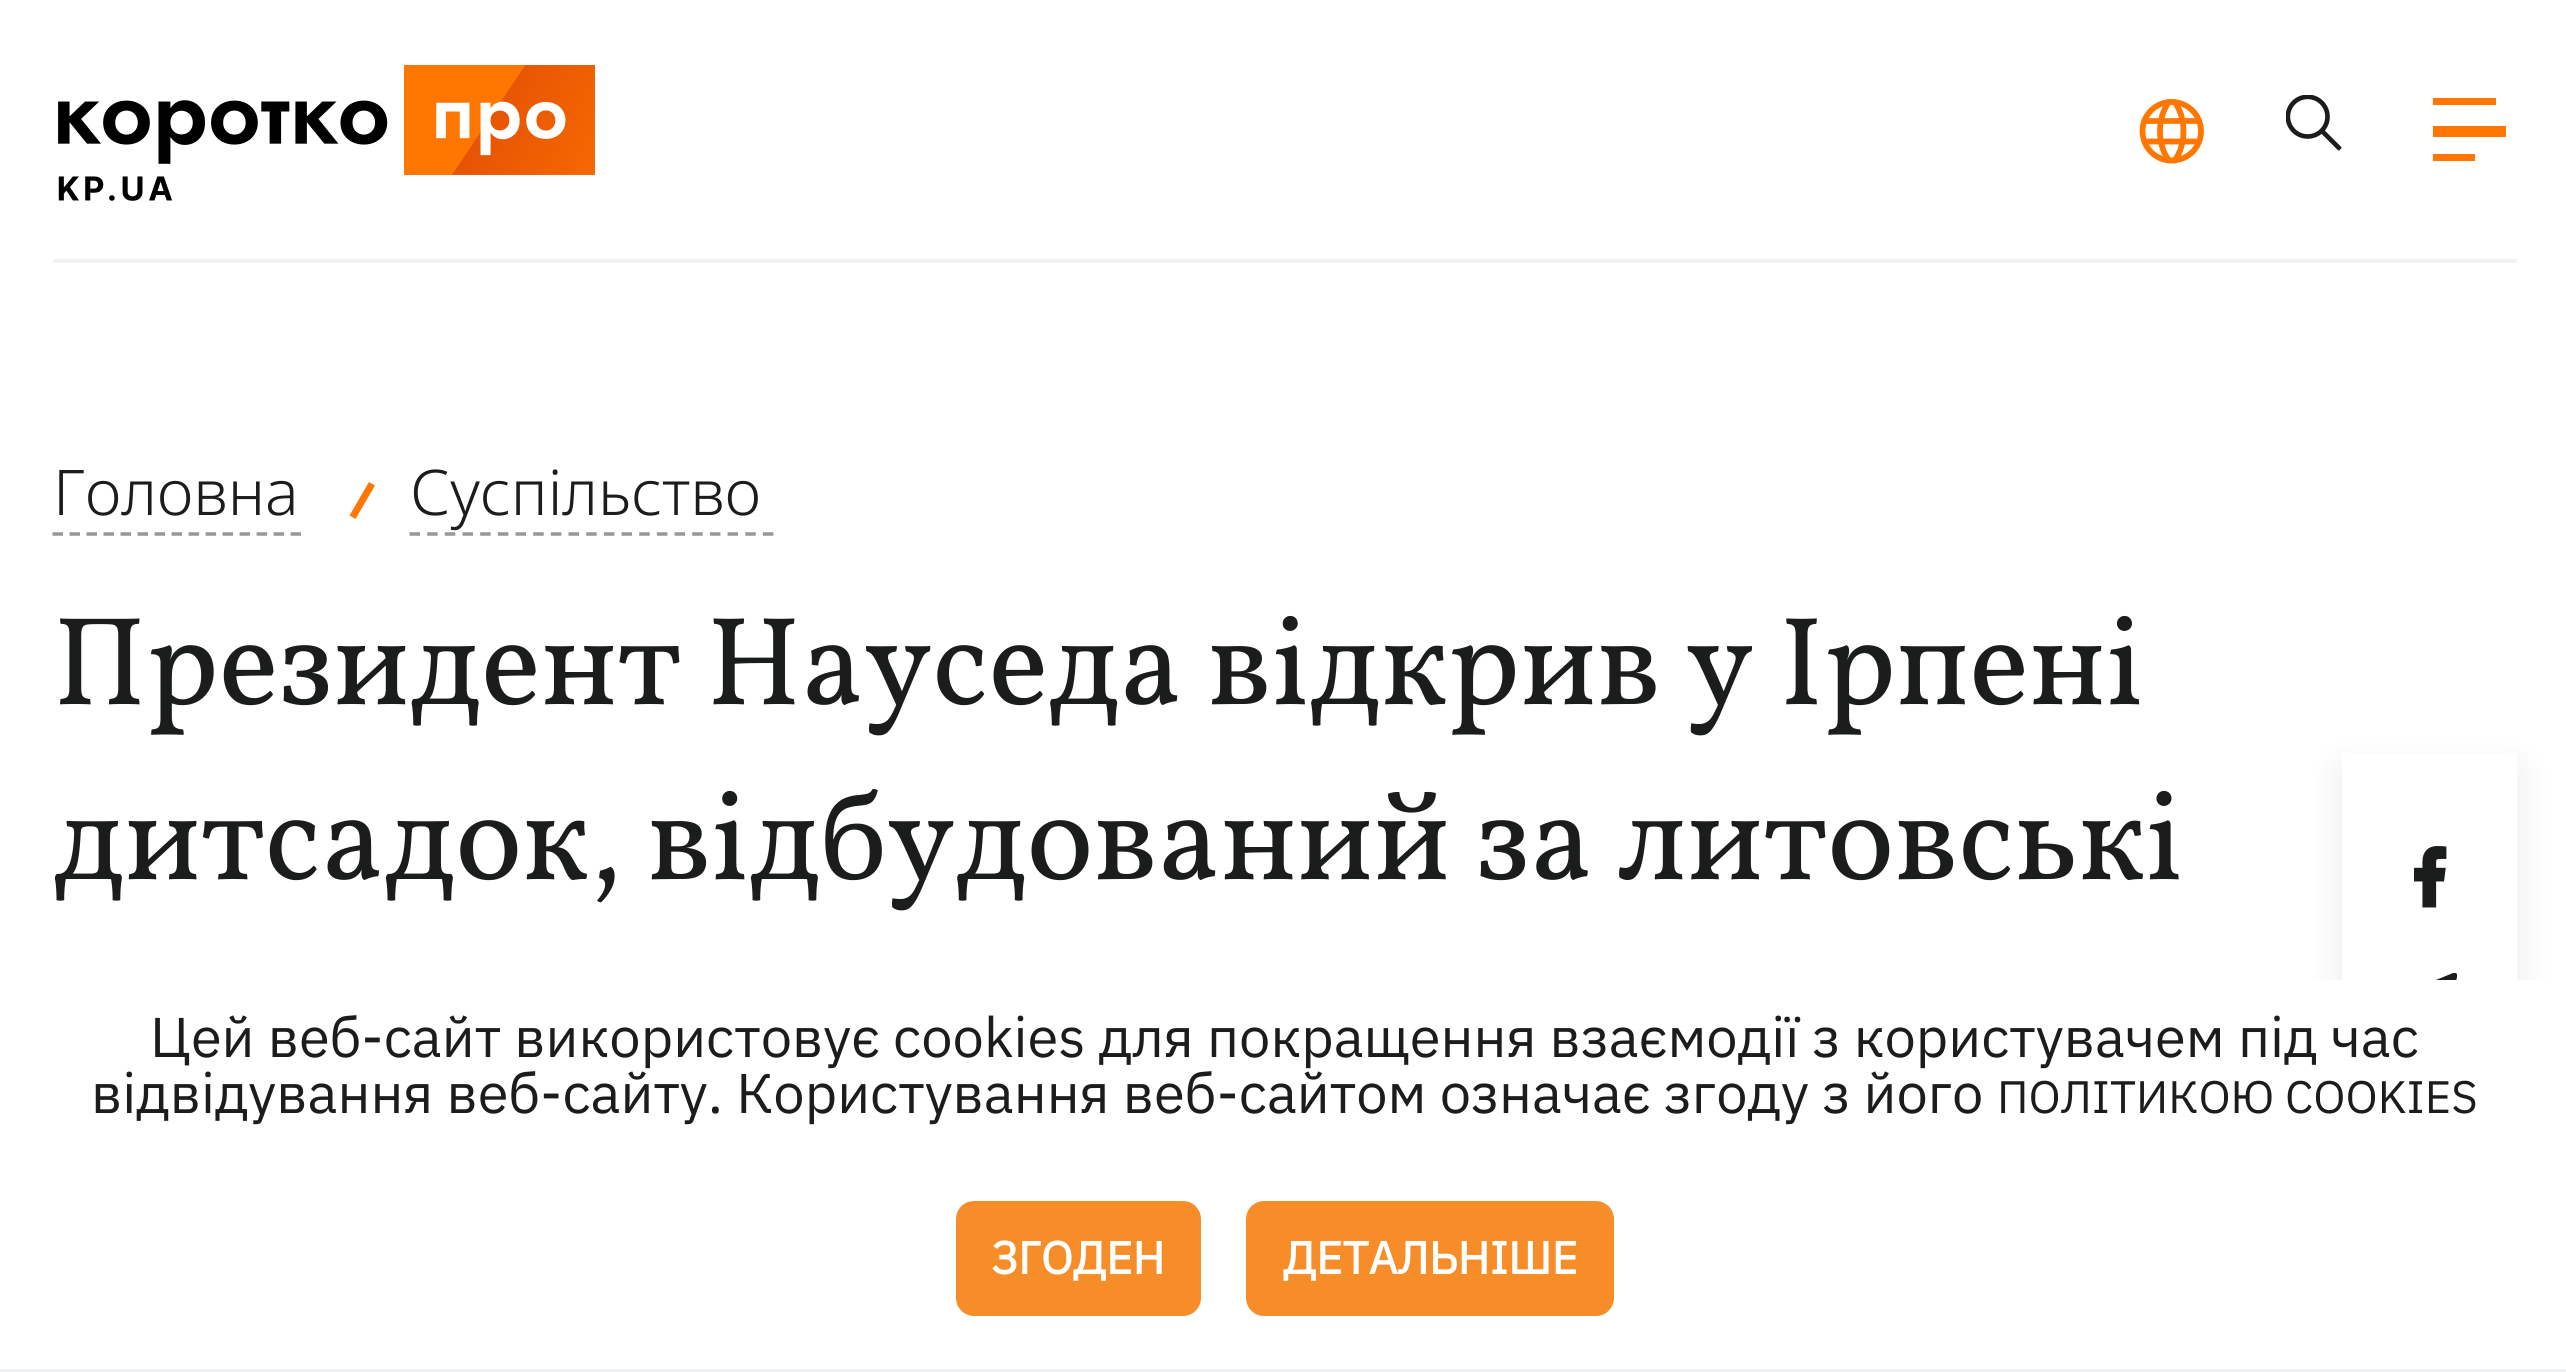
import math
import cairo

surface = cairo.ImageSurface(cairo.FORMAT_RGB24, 2566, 1372)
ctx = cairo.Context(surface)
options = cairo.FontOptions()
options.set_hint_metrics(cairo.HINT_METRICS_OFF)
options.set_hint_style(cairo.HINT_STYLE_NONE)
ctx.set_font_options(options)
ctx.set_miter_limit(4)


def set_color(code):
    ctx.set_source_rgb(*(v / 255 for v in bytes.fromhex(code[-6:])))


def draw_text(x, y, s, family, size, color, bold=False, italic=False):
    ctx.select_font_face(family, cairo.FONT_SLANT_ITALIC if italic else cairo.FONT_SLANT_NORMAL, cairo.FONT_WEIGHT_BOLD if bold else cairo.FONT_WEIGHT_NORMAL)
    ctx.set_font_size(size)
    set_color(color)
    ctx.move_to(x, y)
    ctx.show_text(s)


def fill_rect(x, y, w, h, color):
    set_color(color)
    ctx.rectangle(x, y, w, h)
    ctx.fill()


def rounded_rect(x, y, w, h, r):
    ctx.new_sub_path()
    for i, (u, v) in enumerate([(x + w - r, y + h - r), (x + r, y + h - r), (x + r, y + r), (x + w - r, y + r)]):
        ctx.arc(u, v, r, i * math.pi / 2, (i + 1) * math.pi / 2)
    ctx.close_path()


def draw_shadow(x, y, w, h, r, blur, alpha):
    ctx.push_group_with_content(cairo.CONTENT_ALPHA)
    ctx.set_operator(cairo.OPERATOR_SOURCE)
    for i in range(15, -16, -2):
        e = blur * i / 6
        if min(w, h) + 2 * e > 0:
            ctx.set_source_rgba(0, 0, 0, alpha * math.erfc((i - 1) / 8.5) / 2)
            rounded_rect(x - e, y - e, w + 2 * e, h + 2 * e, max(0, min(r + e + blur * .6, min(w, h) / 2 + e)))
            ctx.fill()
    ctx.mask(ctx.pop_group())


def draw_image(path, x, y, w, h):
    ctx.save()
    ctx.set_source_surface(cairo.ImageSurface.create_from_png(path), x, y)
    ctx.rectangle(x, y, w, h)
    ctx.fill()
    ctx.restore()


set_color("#ffffff")
ctx.paint()
fill_rect(53, 259, 2464, 4, "#f0f1f2")
draw_image("assets/img1.png", 58, 65, 537, 136)
ctx.new_path()
ctx.move_to(2142.5, 131)
ctx.curve_to(2142.5, 147.5, 2155.5, 160.5, 2171.5, 160.5)
ctx.curve_to(2188, 160.5, 2201, 147.5, 2201, 131)
ctx.curve_to(2201, 115, 2188, 102, 2171.5, 102)
ctx.curve_to(2155.5, 102, 2142.5, 115, 2142.5, 131)
ctx.close_path()
set_color("#ff7700")
ctx.set_line_width(5.8)
ctx.set_line_cap(cairo.LINE_CAP_ROUND)
ctx.set_line_join(cairo.LINE_JOIN_ROUND)
ctx.stroke()
ctx.new_path()
ctx.move_to(2174.5, 102)
ctx.curve_to(2186.5, 117.5, 2186.5, 145, 2174.5, 160.5)
ctx.move_to(2169, 160.5)
ctx.curve_to(2157, 145, 2157, 117.5, 2169, 102)
ctx.move_to(2144.5, 141.5)
ctx.line_to(2199, 141.5)
ctx.move_to(2144.5, 121)
ctx.line_to(2199, 121)
ctx.stroke()
draw_image("assets/img2.png", 2286, 95, 56, 56)
fill_rect(2433, 98, 63, 7, "#ff7700")
fill_rect(2433, 126, 73, 11, "#ff7700")
fill_rect(2433, 154, 42, 7, "#ff7700")
draw_text(53, 515, "Головна", "Noto Sans Light", 63, "#1b1c1c")
ctx.new_path()
ctx.move_to(52.5, 534)
ctx.line_to(301, 534)
set_color("#96979b")
ctx.set_line_width(3.5)
ctx.set_line_cap(cairo.LINE_CAP_BUTT)
ctx.set_line_join(cairo.LINE_JOIN_MITER)
ctx.set_dash([10.5, 6.51])
ctx.stroke()
set_color("#ff7700")
ctx.new_path()
ctx.move_to(349.5, 515.5)
ctx.line_to(369, 482)
ctx.line_to(375, 485.5)
ctx.line_to(355.5, 519)
ctx.close_path()
ctx.fill()
draw_text(410, 515, "Суспільство", "Noto Sans Light", 63, "#1b1c1c")
ctx.new_path()
ctx.move_to(409.5, 534)
ctx.line_to(773.5, 534)
set_color("#96979b")
ctx.set_dash([10.5, 7.17])
ctx.stroke()
draw_text(53, 704, "Президент Науседа відкрив у Ірпені", "Vollkorn", 126, "#1b1c1c")
draw_text(53, 879, "дитсадок, відбудований за литовські", "Vollkorn", 126, "#1b1c1c")
set_color("#000000")
draw_shadow(2342, 770, 175, 483, 0, 21, 0.08)
fill_rect(2342, 753, 175, 227, "#ffffff")
draw_image("assets/img3.png", 2414, 846, 33, 62)
ctx.save()
ctx.rectangle(2401, 973, 56, 49)
ctx.clip()
set_color("#1b1c1c")
ctx.new_path()
ctx.move_to(2423, 1005)
ctx.line_to(2422, 1019)
ctx.curve_to(2425, 1019, 2429, 1013, 2431, 1011)
ctx.line_to(2444, 1021)
ctx.curve_to(2446, 1023, 2448, 1022, 2448, 1019)
ctx.line_to(2457, 977)
ctx.curve_to(2458, 974, 2456, 972, 2453, 973)
ctx.line_to(2404, 993)
ctx.curve_to(2400, 995, 2400, 997, 2403, 997)
ctx.line_to(2416, 1002)
ctx.line_to(2445, 982)
ctx.curve_to(2447, 981, 2448, 982, 2447, 983)
ctx.close_path()
ctx.fill()
ctx.restore()
rounded_rect(0, 980, 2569, 392, 18)
ctx.fill()
fill_rect(0, 1369, 2566, 3, "#eceeef")
draw_text(150, 1057, "Цей веб-сайт використовує cookies для покращення взаємодії з користувачем під час", "IBM Plex Sans", 56, "#1b1c1c")
draw_text(91, 1113, "відвідування веб-сайту. Користування веб-сайтом означає згоду з його", "IBM Plex Sans", 56, "#1b1c1c")
draw_text(1997, 1113, "ПОЛІТИКОЮ COOKIES", "IBM Plex Sans", 45.5, "#1b1c1c")
set_color("#f68d29")
rounded_rect(959.5, 1204.5, 238, 108, 14.5)
ctx.fill_preserve()
ctx.set_line_width(7)
ctx.set_dash([])
ctx.stroke()
draw_text(991, 1274, "ЗГОДЕН", "IBM Plex Sans", 45.5, "#ffffff", bold=True)
set_color("#f68d29")
rounded_rect(1249.5, 1204.5, 361, 108, 14.5)
ctx.fill_preserve()
ctx.stroke()
draw_text(1283, 1274, "ДЕТАЛЬНІШЕ", "IBM Plex Sans", 45.5, "#ffffff", bold=True)
surface.write_to_png("output.png")
